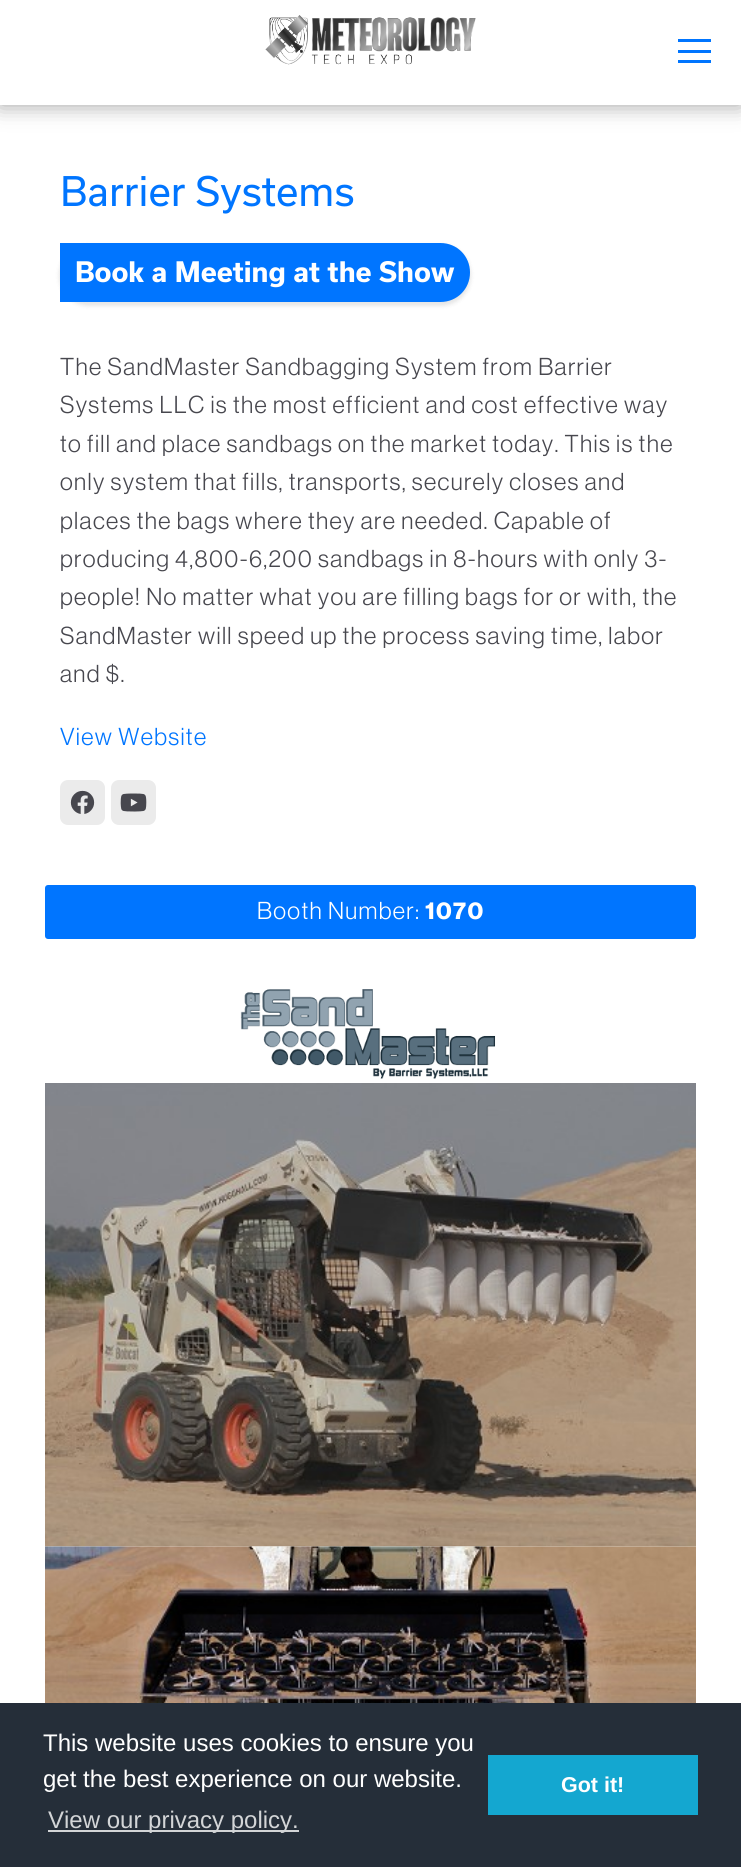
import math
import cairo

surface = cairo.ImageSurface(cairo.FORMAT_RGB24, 741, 1867)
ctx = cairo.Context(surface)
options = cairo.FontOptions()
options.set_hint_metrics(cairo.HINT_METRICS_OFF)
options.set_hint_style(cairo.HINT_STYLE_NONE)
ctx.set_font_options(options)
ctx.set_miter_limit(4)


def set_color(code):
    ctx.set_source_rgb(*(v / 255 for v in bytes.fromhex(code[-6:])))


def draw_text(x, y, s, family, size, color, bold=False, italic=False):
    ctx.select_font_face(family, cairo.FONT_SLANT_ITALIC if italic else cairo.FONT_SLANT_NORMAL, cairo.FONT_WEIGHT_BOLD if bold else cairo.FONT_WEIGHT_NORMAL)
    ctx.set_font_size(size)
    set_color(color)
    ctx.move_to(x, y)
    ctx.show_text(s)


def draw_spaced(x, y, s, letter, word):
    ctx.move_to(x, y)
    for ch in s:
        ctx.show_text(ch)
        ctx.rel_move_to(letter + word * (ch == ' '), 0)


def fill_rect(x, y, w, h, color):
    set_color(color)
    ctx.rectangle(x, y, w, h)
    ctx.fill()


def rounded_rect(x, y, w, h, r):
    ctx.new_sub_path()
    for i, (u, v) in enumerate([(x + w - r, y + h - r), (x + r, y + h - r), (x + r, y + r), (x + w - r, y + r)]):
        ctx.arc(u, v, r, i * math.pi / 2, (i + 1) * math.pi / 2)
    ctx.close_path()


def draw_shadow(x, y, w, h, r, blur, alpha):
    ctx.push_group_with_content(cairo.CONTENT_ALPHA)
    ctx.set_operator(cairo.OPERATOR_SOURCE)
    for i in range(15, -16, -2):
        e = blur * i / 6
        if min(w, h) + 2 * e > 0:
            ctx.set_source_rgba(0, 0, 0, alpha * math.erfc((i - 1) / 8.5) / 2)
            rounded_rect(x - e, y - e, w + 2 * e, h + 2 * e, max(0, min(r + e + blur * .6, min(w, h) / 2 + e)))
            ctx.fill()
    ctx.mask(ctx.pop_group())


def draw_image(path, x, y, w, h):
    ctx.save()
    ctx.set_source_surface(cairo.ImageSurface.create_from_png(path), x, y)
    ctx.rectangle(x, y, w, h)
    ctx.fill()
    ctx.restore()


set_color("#ffffff")
ctx.paint()
set_color("#383838")
draw_shadow(0, 0, 741, 105, 0, 11, 0.48)
fill_rect(0, 0, 741, 105, "#ffffff")
draw_image("assets/img1.png", 265, 15, 211, 50)
fill_rect(678, 39, 33, 3, "#0075ff")
fill_rect(678, 50, 33, 3, "#0075ff")
fill_rect(678, 60, 33, 3, "#0075ff")
draw_text(60, 206, "Barrier Systems", "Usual", 39, "#0075ff")
set_color("#000000")
draw_shadow(59, 245, 412, 61, 30.5, 2, 0.1)
set_color("#0075ff")
ctx.new_path()
ctx.move_to(60, 243)
ctx.line_to(440.5, 243)
ctx.curve_to(457, 243, 470, 256, 470, 272.5)
ctx.curve_to(470, 289, 457, 302, 440.5, 302)
ctx.line_to(60, 302)
ctx.close_path()
ctx.fill()
draw_text(75, 282, "Book a Meeting at the Show", "Usual", 27, "#ffffff", bold=True)
ctx.select_font_face("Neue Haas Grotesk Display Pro")
ctx.set_font_size(24)
set_color("#47474e")
draw_spaced(60, 375, "The SandMaster Sandbagging System from Barrier", 1.35, 0)
draw_spaced(60, 413, "Systems LLC is the most efficient and cost effective way", 1.35, 0)
draw_spaced(60, 452, "to fill and place sandbags on the market today. This is the", 1.35, 0)
draw_spaced(60, 490, "only system that fills, transports, securely closes and", 1.35, 0)
draw_spaced(60, 529, "places the bags where they are needed. Capable of", 1.35, 0)
draw_spaced(60, 567, "producing 4,800-6,200 sandbags in 8-hours with only 3-", 1.35, 0)
draw_spaced(60, 605, "people! No matter what you are filling bags for or with, the", 1.35, 0)
draw_spaced(60, 644, "SandMaster will speed up the process saving time, labor", 1.35, 0)
draw_spaced(60, 682, "and $.", 1.35, 0)
set_color("#0075ff")
draw_spaced(60, 745, "View Website", 1.35, 0)
set_color("#ebebeb")
rounded_rect(60, 780, 45, 45, 8)
ctx.fill()
draw_image("assets/img2.png", 70, 790, 25, 24)
rounded_rect(111, 780, 45, 45, 8)
ctx.fill()
draw_image("assets/img3.png", 120, 793, 27, 19)
set_color("#0075ff")
rounded_rect(45, 885, 651, 54, 3)
ctx.fill()
set_color("#ffffff")
draw_spaced(257, 919, "Booth Number:", 1.35, 0)
ctx.select_font_face("Neue Haas Grotesk Display Pro", cairo.FONT_SLANT_NORMAL, cairo.FONT_WEIGHT_BOLD)
draw_spaced(425, 919, "1070", 1.35, 0)
draw_image("assets/img4.png", 240, 989, 256, 90)
draw_image("assets/img5.png", 45, 1083, 651, 464)
draw_image("assets/img6.png", 45, 1546, 651, 157)
fill_rect(0, 1703, 741, 164, "#252e39")
draw_text(43, 1751, "This website uses cookies to ensure you", "Liberation Sans", 24, "#ffffff")
draw_text(43, 1787, "get the best experience on our website.", "Liberation Sans", 24, "#ffffff")
fill_rect(48, 1830, 251, 2, "#d3d5d7")
draw_text(48, 1828, "View our privacy policy.", "Liberation Sans", 24, "#d3d5d7")
fill_rect(488, 1755, 210, 60, "#14a7d0")
draw_text(561, 1792, "Got it!", "Liberation Sans", 21.5, "#ffffff", bold=True)
surface.write_to_png("output.png")
